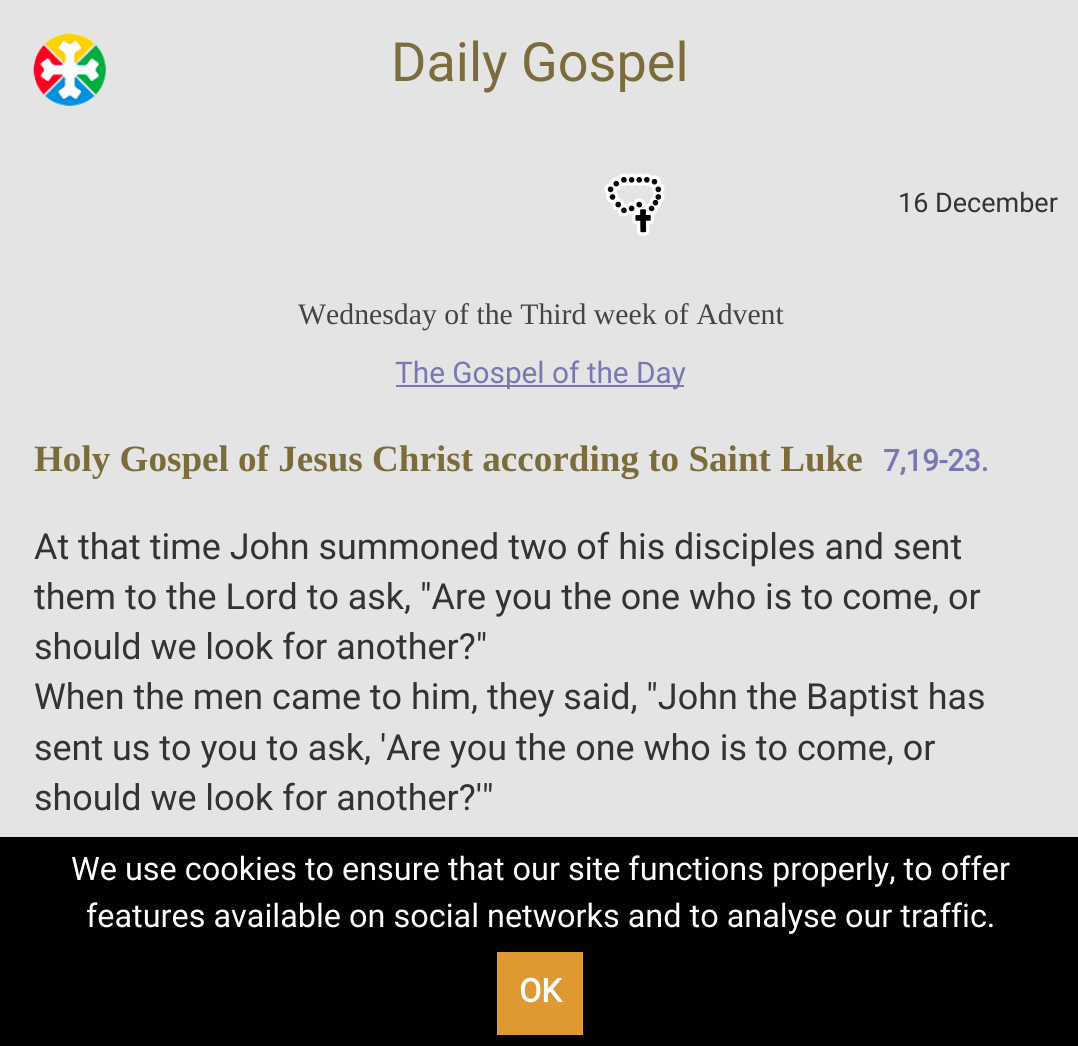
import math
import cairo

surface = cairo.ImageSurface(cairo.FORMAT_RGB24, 1078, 1046)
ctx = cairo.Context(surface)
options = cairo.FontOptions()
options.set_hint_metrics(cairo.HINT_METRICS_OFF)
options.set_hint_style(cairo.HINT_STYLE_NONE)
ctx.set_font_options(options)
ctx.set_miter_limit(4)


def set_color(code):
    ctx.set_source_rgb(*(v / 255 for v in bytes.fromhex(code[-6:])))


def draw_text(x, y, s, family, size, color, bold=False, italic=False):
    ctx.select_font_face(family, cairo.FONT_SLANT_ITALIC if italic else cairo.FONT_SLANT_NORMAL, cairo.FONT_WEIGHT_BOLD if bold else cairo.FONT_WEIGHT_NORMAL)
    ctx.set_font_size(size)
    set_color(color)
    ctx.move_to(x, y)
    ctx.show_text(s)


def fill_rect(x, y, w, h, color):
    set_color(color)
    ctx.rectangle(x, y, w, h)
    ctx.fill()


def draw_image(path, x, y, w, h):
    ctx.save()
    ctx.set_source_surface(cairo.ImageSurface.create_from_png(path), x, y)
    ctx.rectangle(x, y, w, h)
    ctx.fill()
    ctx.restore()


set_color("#e4e4e4")
ctx.paint()
draw_image("assets/img1.png", 33, 33, 73, 73)
draw_text(391, 81, "Daily Gospel", "Roboto", 54, "#7c6c3c")
draw_image("assets/img2.png", 604, 173, 61, 63)
draw_text(898, 212, "16 December", "Roboto", 27, "#333333")
draw_text(298, 324, "Wednesday of the Third week of Advent", "Liberation Serif", 29.75, "#444444")
fill_rect(396, 385, 288, 2, "#7878b3")
draw_text(395, 383, "The Gospel of the Day", "Roboto", 29.75, "#7878b3")
draw_text(34, 471, "Holy Gospel of Jesus Christ according to Saint Luke", "Liberation Serif", 37.1, "#7c6c3c", bold=True)
draw_text(883, 471, "7,19-23.", "Roboto", 29.75, "#7878b3", bold=True)
draw_text(34, 559, "At that time John summoned two of his disciples and sent", "Roboto", 35.9, "#333333")
draw_text(34, 609, "them to the Lord to ask, \"Are you the one who is to come, or", "Roboto", 35.9, "#333333")
draw_text(34, 659, "should we look for another?\"", "Roboto", 35.9, "#333333")
draw_text(34, 709, "When the men came to him, they said, \"John the Baptist has", "Roboto", 35.9, "#333333")
draw_text(34, 760, "sent us to you to ask, 'Are you the one who is to come, or", "Roboto", 35.9, "#333333")
draw_text(34, 810, "should we look for another?'\"", "Roboto", 35.9, "#333333")
fill_rect(0, 837, 1078, 209, "#000000")
draw_text(71, 880, "We use cookies to ensure that our site functions properly, to offer", "Roboto", 32.4, "#ffffff")
draw_text(86, 927, "features available on social networks and to analyse our traffic.", "Roboto", 32.4, "#ffffff")
fill_rect(497, 952, 86, 83, "#de9932")
draw_text(519, 1002, "OK", "Roboto", 32.4, "#ffffff", bold=True)
surface.write_to_png("output.png")
